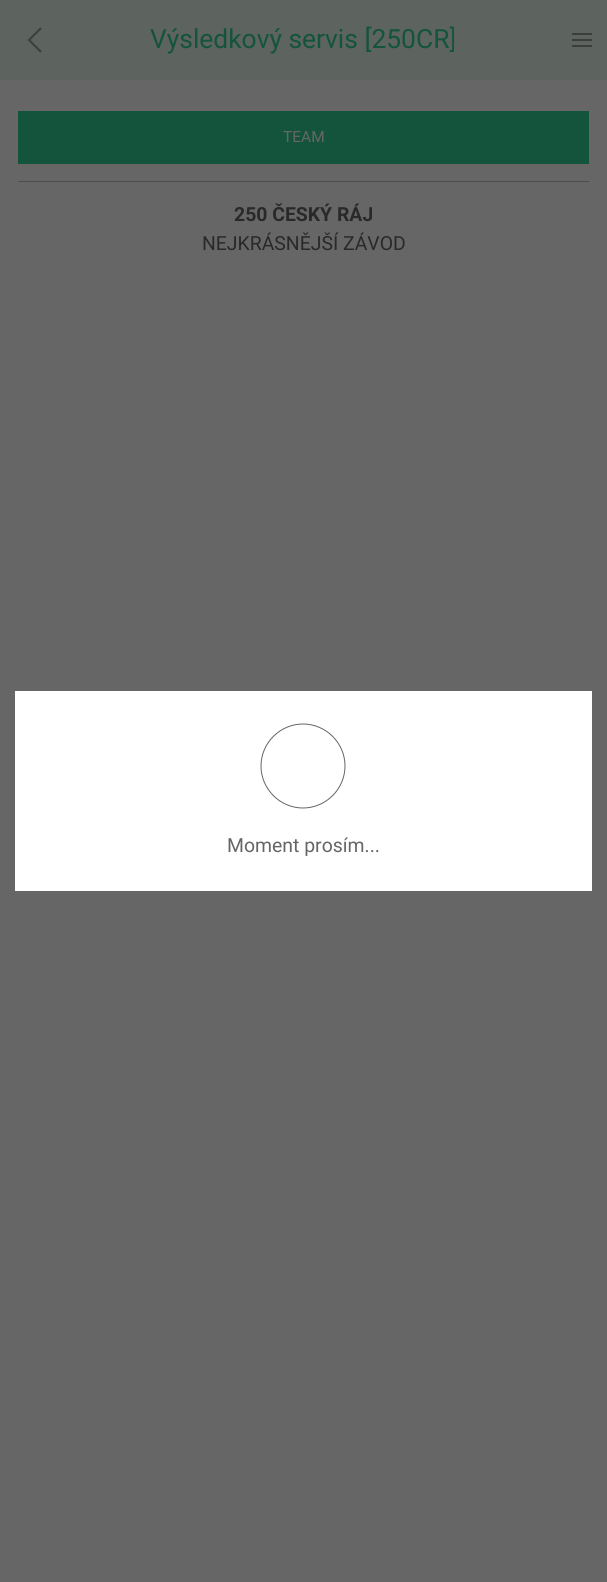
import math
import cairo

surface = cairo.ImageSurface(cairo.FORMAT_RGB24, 607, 1582)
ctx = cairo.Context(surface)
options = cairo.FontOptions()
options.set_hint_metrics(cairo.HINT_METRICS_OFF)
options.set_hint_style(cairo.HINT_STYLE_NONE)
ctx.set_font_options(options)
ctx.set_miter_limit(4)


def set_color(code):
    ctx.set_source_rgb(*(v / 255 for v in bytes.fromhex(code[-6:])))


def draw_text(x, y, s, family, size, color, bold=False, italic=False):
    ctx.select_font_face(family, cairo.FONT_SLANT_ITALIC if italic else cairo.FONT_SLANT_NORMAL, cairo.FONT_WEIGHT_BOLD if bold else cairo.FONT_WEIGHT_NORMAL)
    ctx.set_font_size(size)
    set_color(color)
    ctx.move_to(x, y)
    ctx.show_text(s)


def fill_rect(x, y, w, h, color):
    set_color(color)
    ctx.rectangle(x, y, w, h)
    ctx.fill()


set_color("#666666")
ctx.paint()
fill_rect(0, 0, 607, 80, "#5d635f")
ctx.new_path()
ctx.move_to(41, 52)
ctx.line_to(29, 40)
ctx.line_to(41, 28)
set_color("#3d3d3d")
ctx.set_line_width(2.1)
ctx.stroke()
draw_text(150, 48, "Výsledkový servis [250CR]", "Roboto", 26.4, "#14543c")
fill_rect(572, 39, 20, 2, "#3d3d3d")
fill_rect(572, 33, 20, 2, "#3d3d3d")
fill_rect(572, 45, 20, 2, "#3d3d3d")
fill_rect(18, 111, 571, 53, "#14543c")
draw_text(283, 142, "TEAM", "Roboto", 15.5, "#666666")
fill_rect(18, 181, 571, 1, "#4d4d4d")
draw_text(234, 221, "250 ČESKÝ RÁJ", "Roboto", 19.4, "#292929", bold=True)
draw_text(202, 250, "NEJKRÁSNĚJŠÍ ZÁVOD", "Roboto", 19.4, "#292929")
fill_rect(15, 691, 577, 200, "#ffffff")
ctx.new_path()
ctx.move_to(303, 724)
ctx.curve_to(326, 724, 345, 743, 345, 766)
ctx.curve_to(345, 789, 326, 808, 303, 808)
ctx.curve_to(280, 808, 261, 789, 261, 766)
ctx.curve_to(261, 743, 280, 724, 303, 724)
set_color("#666666")
ctx.set_line_width(1)
ctx.set_line_cap(cairo.LINE_CAP_ROUND)
ctx.stroke()
draw_text(227, 852, "Moment prosím...", "Roboto", 19.4, "#666666")
surface.write_to_png("output.png")
